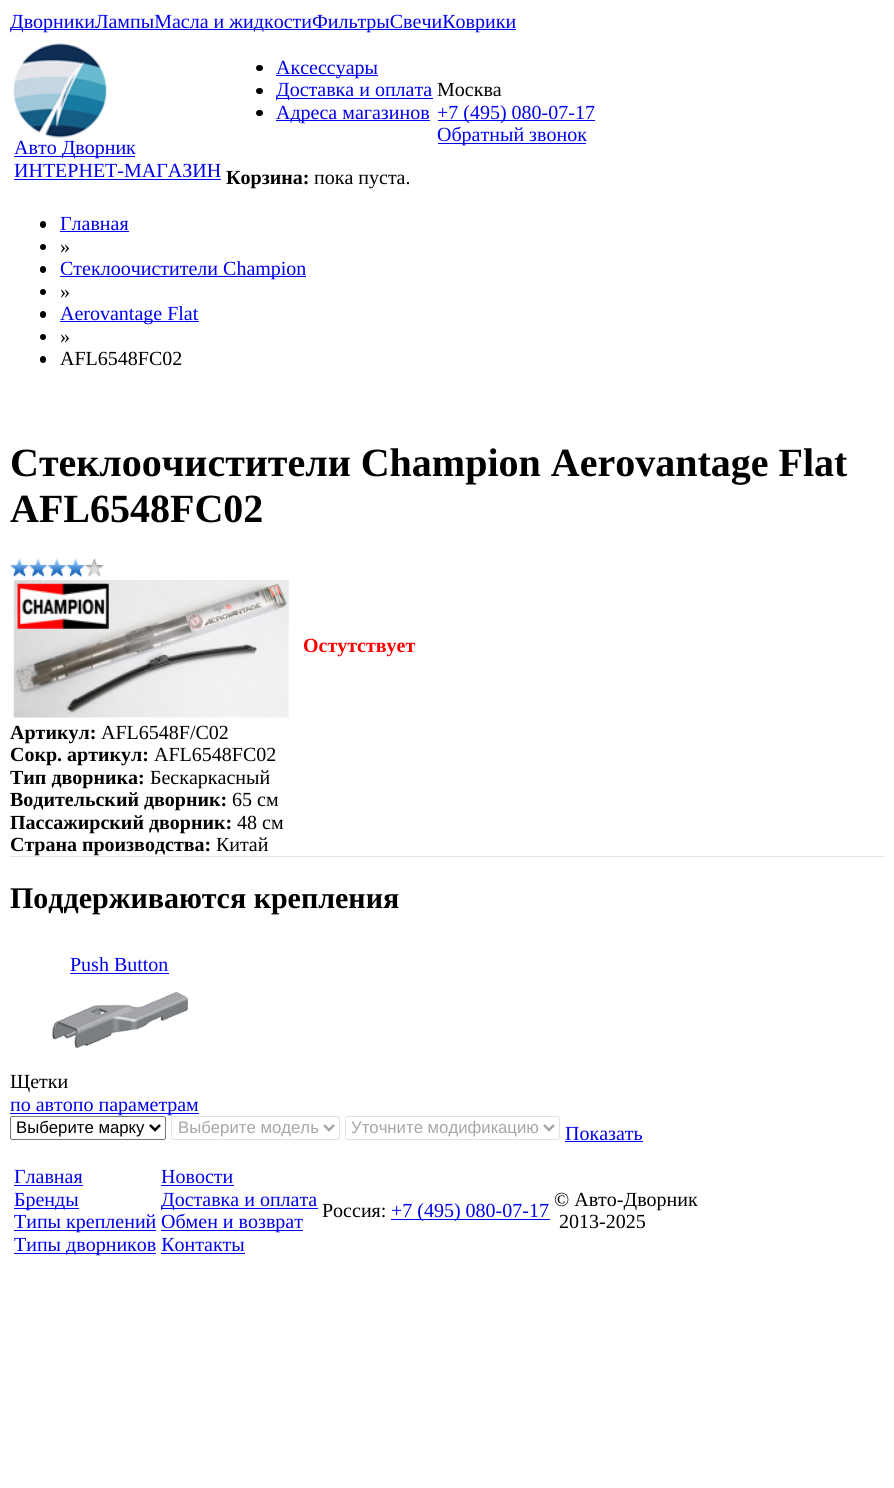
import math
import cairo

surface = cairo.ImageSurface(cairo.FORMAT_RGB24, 894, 1488)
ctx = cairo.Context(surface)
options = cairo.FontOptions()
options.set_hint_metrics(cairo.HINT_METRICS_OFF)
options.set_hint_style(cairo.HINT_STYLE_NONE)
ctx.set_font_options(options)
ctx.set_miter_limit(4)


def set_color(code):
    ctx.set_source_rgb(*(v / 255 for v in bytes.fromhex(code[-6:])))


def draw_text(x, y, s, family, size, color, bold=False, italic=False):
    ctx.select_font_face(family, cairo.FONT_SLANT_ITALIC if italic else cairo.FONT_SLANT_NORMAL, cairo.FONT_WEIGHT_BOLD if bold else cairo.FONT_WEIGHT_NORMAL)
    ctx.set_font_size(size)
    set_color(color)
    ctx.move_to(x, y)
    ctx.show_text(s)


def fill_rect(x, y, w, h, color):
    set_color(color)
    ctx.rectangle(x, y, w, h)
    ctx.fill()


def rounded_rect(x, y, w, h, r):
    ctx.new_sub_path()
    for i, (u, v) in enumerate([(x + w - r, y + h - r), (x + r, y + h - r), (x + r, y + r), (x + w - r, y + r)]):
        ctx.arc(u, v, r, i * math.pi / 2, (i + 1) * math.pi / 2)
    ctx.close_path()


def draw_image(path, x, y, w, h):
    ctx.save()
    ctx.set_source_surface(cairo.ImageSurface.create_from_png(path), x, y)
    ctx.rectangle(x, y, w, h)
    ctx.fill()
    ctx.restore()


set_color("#ffffff")
ctx.paint()
fill_rect(10, 29, 506, 1, "#0000ee")
draw_text(10, 28, "ДворникиЛампыМасла и жидкостиФильтрыСвечиКоврики", "Liberation Serif", 20, "#0000ee")
set_color("#000000")
rounded_rect(256, 65, 7, 6, 3)
ctx.fill()
fill_rect(276, 75, 102, 1, "#0000ee")
draw_text(276, 74, "Аксессуары", "Liberation Serif", 20, "#0000ee")
set_color("#000000")
rounded_rect(256, 88, 7, 6, 3)
ctx.fill()
fill_rect(276, 98, 157, 1, "#0000ee")
draw_text(276, 96, "Доставка и оплата", "Liberation Serif", 20, "#0000ee")
set_color("#000000")
rounded_rect(256, 110, 7, 6, 3)
ctx.fill()
fill_rect(276, 120, 154, 1, "#0000ee")
draw_text(276, 119, "Адреса магазинов", "Liberation Serif", 20, "#0000ee")
draw_text(226, 184, "Корзина:", "Liberation Serif", 20, "#000000", bold=True)
draw_text(314, 184, "пока пуста.", "Liberation Serif", 20, "#000000")
draw_text(437, 96, "Москва", "Liberation Serif", 20, "#000000")
fill_rect(438, 120, 157, 1, "#0000ee")
draw_text(437, 119, "+7 (495) 080-07-17", "Liberation Serif", 20, "#0000ee")
fill_rect(438, 143, 148, 1, "#0000ee")
draw_text(437, 141, "Обратный звонок", "Liberation Serif", 20, "#0000ee")
draw_image("assets/img1.png", 13, 43, 94, 95)
fill_rect(14, 156, 121, 1, "#0000ee")
draw_text(14, 154, "Авто Дворник", "Liberation Serif", 20, "#0000ee")
draw_text(14, 177, "ИНТЕРНЕТ-МАГАЗИН", "Liberation Serif", 20, "#0000ee")
fill_rect(14, 179, 207, 1, "#0000ee")
set_color("#000000")
rounded_rect(40, 221, 6, 7, 3)
ctx.fill()
draw_text(60, 230, "Главная", "Liberation Serif", 20, "#0000ee")
fill_rect(60, 231, 69, 1, "#0000ee")
set_color("#000000")
ctx.new_path()
ctx.arc(43, 247, 3, 0, 2 * math.pi)
ctx.fill()
draw_text(60, 253, "»", "Liberation Serif", 20, "#000000")
rounded_rect(40, 266, 6, 7, 3)
ctx.fill()
fill_rect(60, 276, 246, 1, "#0000ee")
draw_text(60, 275, "Стеклоочистители Champion", "Liberation Serif", 20, "#0000ee")
set_color("#000000")
ctx.new_path()
ctx.arc(43, 292, 3, 0, 2 * math.pi)
ctx.fill()
draw_text(60, 298, "»", "Liberation Serif", 20, "#000000")
rounded_rect(40, 311, 6, 7, 3)
ctx.fill()
fill_rect(60, 321, 139, 1, "#0000ee")
draw_text(60, 320, "Aerovantage Flat", "Liberation Serif", 20, "#0000ee")
set_color("#000000")
ctx.new_path()
ctx.arc(43, 337, 3, 0, 2 * math.pi)
ctx.fill()
draw_text(60, 343, "»", "Liberation Serif", 20, "#000000")
rounded_rect(40, 356, 6, 7, 3)
ctx.fill()
draw_text(60, 365, "AFL6548FC02", "Liberation Serif", 20, "#000000")
draw_text(10, 476, "Стеклоочистители Champion Aerovantage Flat", "Liberation Serif", 40, "#000000", bold=True)
draw_text(10, 522, "AFL6548FC02", "Liberation Serif", 40, "#000000", bold=True)
draw_image("assets/img2.png", 10, 558, 19, 19)
draw_image("assets/img3.png", 29, 558, 19, 19)
draw_image("assets/img4.png", 47, 558, 20, 19)
draw_image("assets/img5.png", 66, 558, 19, 19)
draw_image("assets/img6.png", 85, 558, 19, 19)
draw_image("assets/img7.png", 13, 580, 276, 138)
draw_text(303, 652, "Остутствует", "Liberation Serif", 20, "#ff0000", bold=True)
fill_rect(10, 856, 875, 1, "#e6e5e2")
draw_text(10, 739, "Артикул:", "Liberation Serif", 20, "#000000", bold=True)
draw_text(101, 739, "AFL6548F/C02", "Liberation Serif", 20, "#000000")
draw_text(10, 761, "Сокр. артикул:", "Liberation Serif", 20, "#000000", bold=True)
draw_text(154, 761, "AFL6548FC02", "Liberation Serif", 20, "#000000")
draw_text(10, 784, "Тип дворника:", "Liberation Serif", 20, "#000000", bold=True)
draw_text(150, 784, "Бескаркасный", "Liberation Serif", 20, "#000000")
draw_text(10, 806, "Водительский дворник:", "Liberation Serif", 20, "#000000", bold=True)
draw_text(232, 806, "65 см", "Liberation Serif", 20, "#000000")
draw_text(10, 829, "Пассажирский дворник:", "Liberation Serif", 20, "#000000", bold=True)
draw_text(237, 829, "48 см", "Liberation Serif", 20, "#000000")
draw_text(10, 851, "Страна производства:", "Liberation Serif", 20, "#000000", bold=True)
draw_text(216, 851, "Китай", "Liberation Serif", 20, "#000000")
draw_text(10, 908, "Поддерживаются крепления", "Liberation Serif", 30, "#000000", bold=True)
draw_text(70, 971, "Push Button", "Liberation Serif", 20, "#0000ee")
fill_rect(70, 973, 99, 1, "#0000ee")
draw_image("assets/img8.png", 52, 992, 136, 56)
draw_text(10, 1088, "Щетки", "Liberation Serif", 20, "#000000")
fill_rect(10, 1113, 189, 1, "#0000ee")
draw_text(10, 1111, "по автопо параметрам", "Liberation Serif", 20, "#0000ee")
rounded_rect(10.5, 1116.5, 155, 23, 2)
set_color("#767676")
ctx.set_line_width(1)
ctx.stroke()
ctx.new_path()
ctx.move_to(150, 1125)
ctx.line_to(155, 1130)
ctx.line_to(160, 1125)
set_color("#000000")
ctx.set_line_width(2.5)
ctx.stroke()
draw_text(16, 1133, "Выберите марку", "Liberation Sans", 16.75, "#000000")
rounded_rect(171.5, 1116.5, 168, 23, 2)
set_color("#e2e2e2")
ctx.set_line_width(1)
ctx.stroke()
ctx.new_path()
ctx.move_to(324, 1125)
ctx.line_to(329, 1130)
ctx.line_to(334, 1125)
set_color("#a6a6a6")
ctx.set_line_width(2.5)
ctx.stroke()
draw_text(178, 1133, "Выберите модель", "Liberation Sans", 16.75, "#a6a6a6")
rounded_rect(345.5, 1116.5, 214, 23, 2)
set_color("#e2e2e2")
ctx.set_line_width(1)
ctx.stroke()
ctx.new_path()
ctx.move_to(544, 1125)
ctx.line_to(549, 1130)
ctx.line_to(554, 1125)
set_color("#a6a6a6")
ctx.set_line_width(2.5)
ctx.stroke()
draw_text(351, 1133, "Уточните модификацию", "Liberation Sans", 16.75, "#a6a6a6")
draw_text(565, 1140, "Показать", "Liberation Serif", 20, "#0000ee")
fill_rect(565, 1141, 78, 1, "#0000ee")
draw_text(14, 1183, "Главная", "Liberation Serif", 20, "#0000ee")
fill_rect(14, 1185, 69, 1, "#0000ee")
fill_rect(14, 1208, 65, 1, "#0000ee")
draw_text(14, 1206, "Бренды", "Liberation Serif", 20, "#0000ee")
fill_rect(14, 1230, 142, 1, "#0000ee")
draw_text(14, 1228, "Типы креплений", "Liberation Serif", 20, "#0000ee")
fill_rect(14, 1253, 142, 1, "#0000ee")
draw_text(14, 1251, "Типы дворников Контакты", "Liberation Serif", 20, "#0000ee")
draw_text(161, 1183, "Новости", "Liberation Serif", 20, "#0000ee")
fill_rect(161, 1185, 73, 1, "#0000ee")
fill_rect(161, 1208, 157, 1, "#0000ee")
draw_text(161, 1206, "Доставка и оплата", "Liberation Serif", 20, "#0000ee")
fill_rect(161, 1230, 142, 1, "#0000ee")
draw_text(161, 1228, "Обмен и возврат", "Liberation Serif", 20, "#0000ee")
fill_rect(161, 1253, 84, 1, "#0000ee")
draw_text(322, 1217, "Россия:", "Liberation Serif", 20, "#000000")
fill_rect(391, 1219, 159, 1, "#0000ee")
draw_text(391, 1217, "+7 (495) 080-07-17", "Liberation Serif", 20, "#0000ee")
draw_text(554, 1206, "© Авто-Дворник", "Liberation Serif", 20, "#000000")
draw_text(559, 1228, "2013-2025", "Liberation Serif", 20, "#000000")
surface.write_to_png("output.png")
